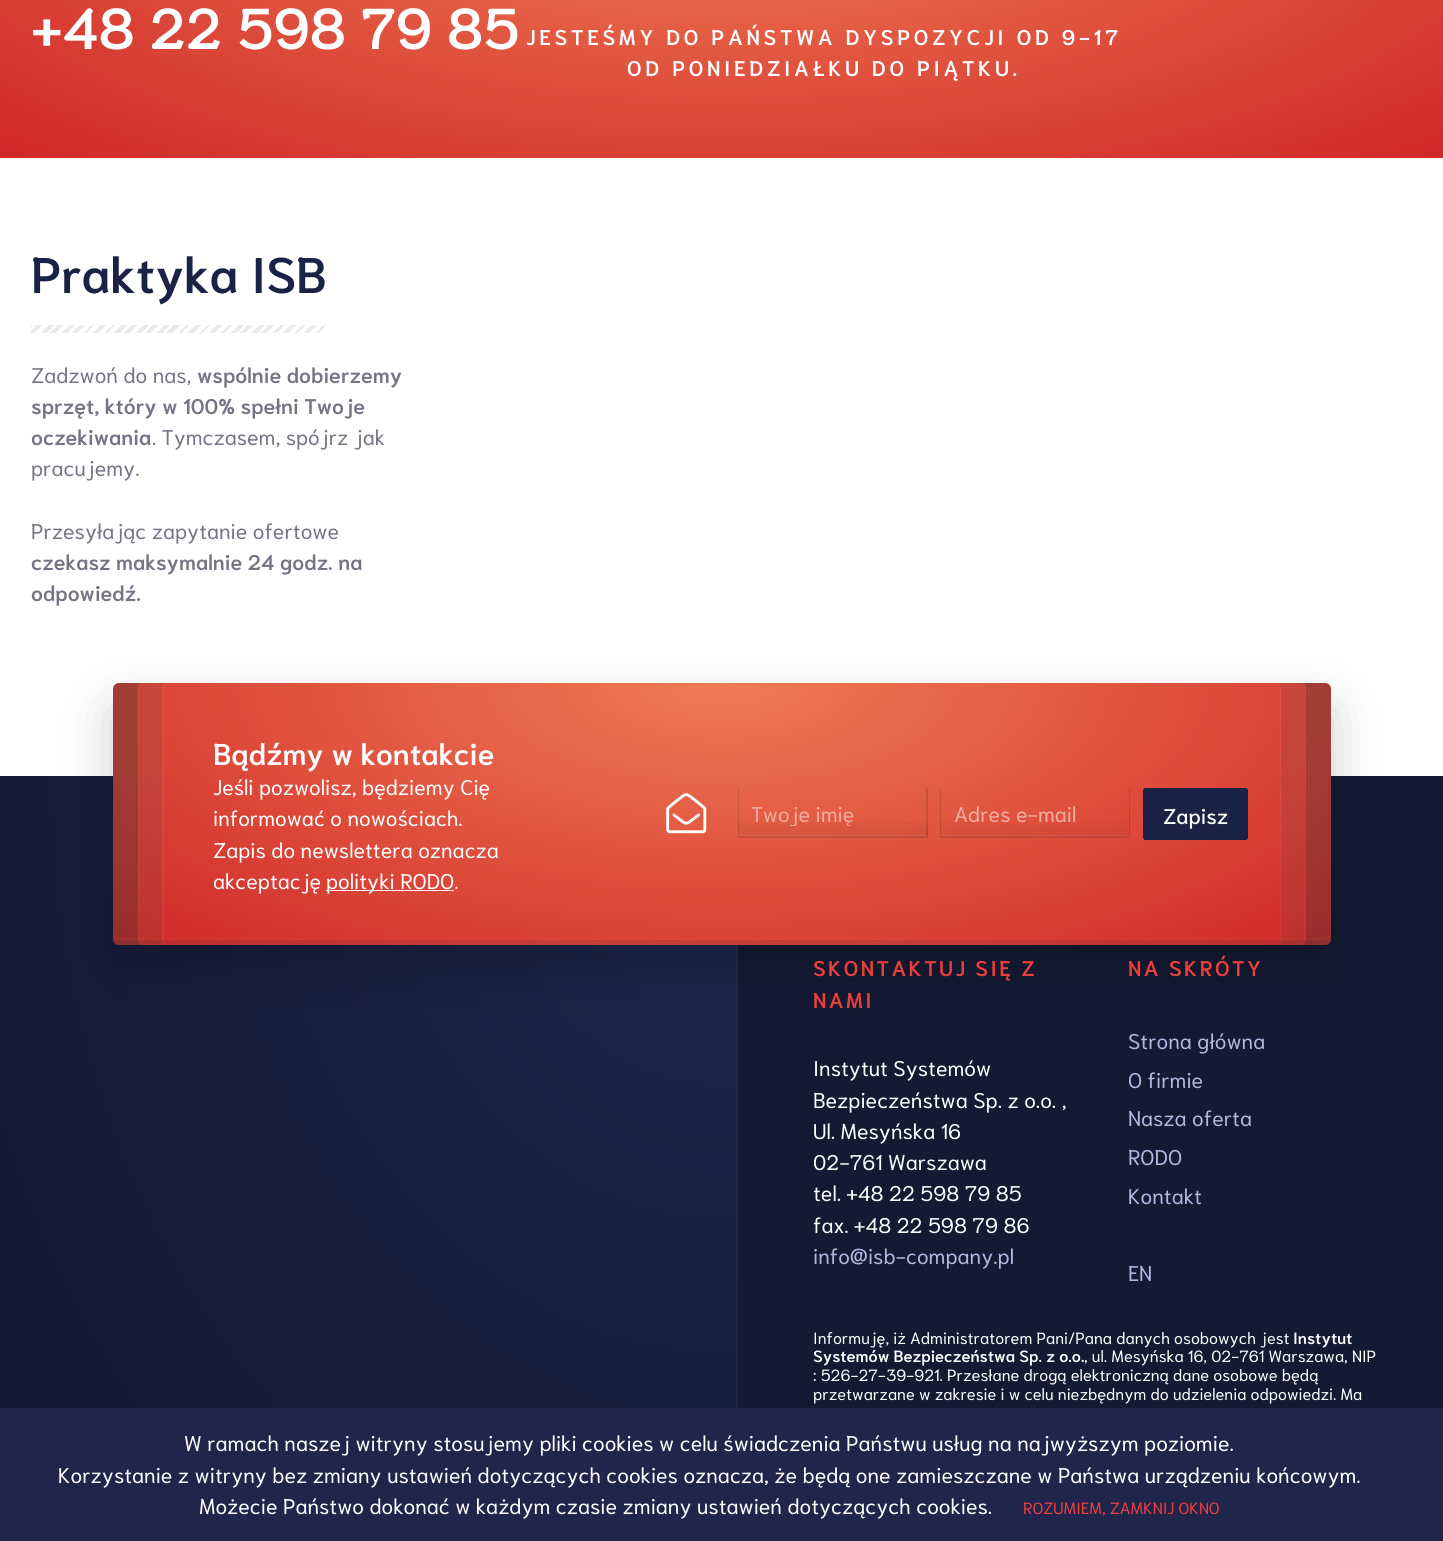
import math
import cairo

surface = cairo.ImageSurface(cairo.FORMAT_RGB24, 1443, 1541)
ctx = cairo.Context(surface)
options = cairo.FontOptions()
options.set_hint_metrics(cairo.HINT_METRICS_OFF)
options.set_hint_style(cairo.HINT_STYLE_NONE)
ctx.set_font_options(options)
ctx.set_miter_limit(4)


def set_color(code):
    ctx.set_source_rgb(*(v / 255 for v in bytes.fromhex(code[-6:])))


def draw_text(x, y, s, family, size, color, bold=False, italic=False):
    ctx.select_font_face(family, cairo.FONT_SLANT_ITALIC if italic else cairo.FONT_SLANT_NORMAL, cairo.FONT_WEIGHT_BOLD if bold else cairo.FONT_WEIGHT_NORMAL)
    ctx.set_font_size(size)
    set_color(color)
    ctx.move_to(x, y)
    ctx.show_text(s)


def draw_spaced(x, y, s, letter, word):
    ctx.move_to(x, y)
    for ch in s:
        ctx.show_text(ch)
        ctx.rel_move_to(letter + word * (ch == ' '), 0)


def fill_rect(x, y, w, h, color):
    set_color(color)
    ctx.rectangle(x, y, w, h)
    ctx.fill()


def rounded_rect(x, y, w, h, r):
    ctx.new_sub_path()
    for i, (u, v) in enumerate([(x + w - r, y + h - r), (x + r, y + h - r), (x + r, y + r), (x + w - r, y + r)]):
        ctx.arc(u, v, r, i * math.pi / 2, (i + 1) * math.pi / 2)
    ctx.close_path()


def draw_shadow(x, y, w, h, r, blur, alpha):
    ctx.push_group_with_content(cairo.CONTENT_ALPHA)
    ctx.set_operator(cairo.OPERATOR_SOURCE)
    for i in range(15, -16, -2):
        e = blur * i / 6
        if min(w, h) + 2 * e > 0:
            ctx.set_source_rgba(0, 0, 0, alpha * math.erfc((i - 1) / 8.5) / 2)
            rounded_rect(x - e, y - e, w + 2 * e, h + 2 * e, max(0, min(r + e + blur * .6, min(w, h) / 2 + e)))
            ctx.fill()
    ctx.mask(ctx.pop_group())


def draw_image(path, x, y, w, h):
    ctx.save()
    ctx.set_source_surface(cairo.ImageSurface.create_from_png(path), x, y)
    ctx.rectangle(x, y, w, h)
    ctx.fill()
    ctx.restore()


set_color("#ffffff")
ctx.paint()
gradient = cairo.RadialGradient(0, 0, 0, 0, 0, 1)
gradient.set_matrix(cairo.Matrix(1 / 1021, 0, 0, 1 / 380, -1 * 722 / 1021, -1 * -111 / 380))
gradient.add_color_stop_rgba(0, 0.937, 0.486, 0.333, 1)
gradient.add_color_stop_rgba(1, 0.816, 0.157, 0.157, 1)
ctx.set_source(gradient)
ctx.rectangle(0, 0, 1443, 158)
ctx.fill()
draw_text(31, 49, "+48 22 598 79 85", "Niramit SemiBold", 57.5, "#ffffff")
ctx.set_font_size(21.25)
draw_spaced(526, 45, "JESTEŚMY DO PAŃSTWA DYSPOZYCJI OD 9-17", 3.75, 0)
draw_spaced(627, 76, "OD PONIEDZIAŁKU DO PIĄTKU.", 3.75, 0)
draw_text(31, 293, "Praktyka ISB", "Niramit SemiBold", 50, "#1a2345")
gradient = cairo.LinearGradient(254, 404, 101, 251)
gradient.add_color_stop_rgba(0, 1, 1, 1, 1)
gradient.add_color_stop_rgba(0.02, 1, 1, 1, 1)
gradient.add_color_stop_rgba(0.02, 0.918, 0.918, 0.929, 1)
gradient.add_color_stop_rgba(0.03, 0.918, 0.918, 0.929, 1)
gradient.add_color_stop_rgba(0.03, 1, 1, 1, 1)
gradient.add_color_stop_rgba(0.05, 1, 1, 1, 1)
gradient.add_color_stop_rgba(0.05, 0.918, 0.918, 0.929, 1)
gradient.add_color_stop_rgba(0.07, 0.918, 0.918, 0.929, 1)
gradient.add_color_stop_rgba(0.07, 1, 1, 1, 1)
gradient.add_color_stop_rgba(0.09, 1, 1, 1, 1)
gradient.add_color_stop_rgba(0.09, 0.918, 0.918, 0.929, 1)
gradient.add_color_stop_rgba(0.1, 0.918, 0.918, 0.929, 1)
gradient.add_color_stop_rgba(0.1, 1, 1, 1, 1)
gradient.add_color_stop_rgba(0.12, 1, 1, 1, 1)
gradient.add_color_stop_rgba(0.12, 0.918, 0.918, 0.929, 1)
gradient.add_color_stop_rgba(0.14, 0.918, 0.918, 0.929, 1)
gradient.add_color_stop_rgba(0.14, 1, 1, 1, 1)
gradient.add_color_stop_rgba(0.16, 1, 1, 1, 1)
gradient.add_color_stop_rgba(0.16, 0.918, 0.918, 0.929, 1)
gradient.add_color_stop_rgba(0.17, 0.918, 0.918, 0.929, 1)
gradient.add_color_stop_rgba(0.17, 1, 1, 1, 1)
gradient.add_color_stop_rgba(0.19, 1, 1, 1, 1)
gradient.add_color_stop_rgba(0.19, 0.918, 0.918, 0.929, 1)
gradient.add_color_stop_rgba(0.21, 0.918, 0.918, 0.929, 1)
gradient.add_color_stop_rgba(0.21, 1, 1, 1, 1)
gradient.add_color_stop_rgba(0.22, 1, 1, 1, 1)
gradient.add_color_stop_rgba(0.22, 0.918, 0.918, 0.929, 1)
gradient.add_color_stop_rgba(0.24, 0.918, 0.918, 0.929, 1)
gradient.add_color_stop_rgba(0.24, 1, 1, 1, 1)
gradient.add_color_stop_rgba(0.26, 1, 1, 1, 1)
gradient.add_color_stop_rgba(0.26, 0.918, 0.918, 0.929, 1)
gradient.add_color_stop_rgba(0.28, 0.918, 0.918, 0.929, 1)
gradient.add_color_stop_rgba(0.28, 1, 1, 1, 1)
gradient.add_color_stop_rgba(0.29, 1, 1, 1, 1)
gradient.add_color_stop_rgba(0.29, 0.918, 0.918, 0.929, 1)
gradient.add_color_stop_rgba(0.31, 0.918, 0.918, 0.929, 1)
gradient.add_color_stop_rgba(0.31, 1, 1, 1, 1)
gradient.add_color_stop_rgba(0.33, 1, 1, 1, 1)
gradient.add_color_stop_rgba(0.33, 0.918, 0.918, 0.929, 1)
gradient.add_color_stop_rgba(0.34, 0.918, 0.918, 0.929, 1)
gradient.add_color_stop_rgba(0.34, 1, 1, 1, 1)
gradient.add_color_stop_rgba(0.36, 1, 1, 1, 1)
gradient.add_color_stop_rgba(0.36, 0.918, 0.918, 0.929, 1)
gradient.add_color_stop_rgba(0.38, 0.918, 0.918, 0.929, 1)
gradient.add_color_stop_rgba(0.38, 1, 1, 1, 1)
gradient.add_color_stop_rgba(0.4, 1, 1, 1, 1)
gradient.add_color_stop_rgba(0.4, 0.918, 0.918, 0.929, 1)
gradient.add_color_stop_rgba(0.41, 0.918, 0.918, 0.929, 1)
gradient.add_color_stop_rgba(0.41, 1, 1, 1, 1)
gradient.add_color_stop_rgba(0.43, 1, 1, 1, 1)
gradient.add_color_stop_rgba(0.43, 0.918, 0.918, 0.929, 1)
gradient.add_color_stop_rgba(0.45, 0.918, 0.918, 0.929, 1)
gradient.add_color_stop_rgba(0.45, 1, 1, 1, 1)
gradient.add_color_stop_rgba(0.47, 1, 1, 1, 1)
gradient.add_color_stop_rgba(0.47, 0.918, 0.918, 0.929, 1)
gradient.add_color_stop_rgba(0.48, 0.918, 0.918, 0.929, 1)
gradient.add_color_stop_rgba(0.48, 1, 1, 1, 1)
gradient.add_color_stop_rgba(0.5, 1, 1, 1, 1)
gradient.add_color_stop_rgba(0.5, 0.918, 0.918, 0.929, 1)
gradient.add_color_stop_rgba(0.52, 0.918, 0.918, 0.929, 1)
gradient.add_color_stop_rgba(0.52, 1, 1, 1, 1)
gradient.add_color_stop_rgba(0.53, 1, 1, 1, 1)
gradient.add_color_stop_rgba(0.53, 0.918, 0.918, 0.929, 1)
gradient.add_color_stop_rgba(0.55, 0.918, 0.918, 0.929, 1)
gradient.add_color_stop_rgba(0.55, 1, 1, 1, 1)
gradient.add_color_stop_rgba(0.57, 1, 1, 1, 1)
gradient.add_color_stop_rgba(0.57, 0.918, 0.918, 0.929, 1)
gradient.add_color_stop_rgba(0.59, 0.918, 0.918, 0.929, 1)
gradient.add_color_stop_rgba(0.59, 1, 1, 1, 1)
gradient.add_color_stop_rgba(0.6, 1, 1, 1, 1)
gradient.add_color_stop_rgba(0.6, 0.918, 0.918, 0.929, 1)
gradient.add_color_stop_rgba(0.62, 0.918, 0.918, 0.929, 1)
gradient.add_color_stop_rgba(0.62, 1, 1, 1, 1)
gradient.add_color_stop_rgba(0.64, 1, 1, 1, 1)
gradient.add_color_stop_rgba(0.64, 0.918, 0.918, 0.929, 1)
gradient.add_color_stop_rgba(0.66, 0.918, 0.918, 0.929, 1)
gradient.add_color_stop_rgba(0.66, 1, 1, 1, 1)
gradient.add_color_stop_rgba(0.67, 1, 1, 1, 1)
gradient.add_color_stop_rgba(0.67, 0.918, 0.918, 0.929, 1)
gradient.add_color_stop_rgba(0.69, 0.918, 0.918, 0.929, 1)
gradient.add_color_stop_rgba(0.69, 1, 1, 1, 1)
gradient.add_color_stop_rgba(0.71, 1, 1, 1, 1)
gradient.add_color_stop_rgba(0.71, 0.918, 0.918, 0.929, 1)
gradient.add_color_stop_rgba(0.72, 0.918, 0.918, 0.929, 1)
gradient.add_color_stop_rgba(0.72, 1, 1, 1, 1)
gradient.add_color_stop_rgba(0.74, 1, 1, 1, 1)
gradient.add_color_stop_rgba(0.74, 0.918, 0.918, 0.929, 1)
gradient.add_color_stop_rgba(0.76, 0.918, 0.918, 0.929, 1)
gradient.add_color_stop_rgba(0.76, 1, 1, 1, 1)
gradient.add_color_stop_rgba(0.78, 1, 1, 1, 1)
gradient.add_color_stop_rgba(0.78, 0.918, 0.918, 0.929, 1)
gradient.add_color_stop_rgba(0.79, 0.918, 0.918, 0.929, 1)
gradient.add_color_stop_rgba(0.79, 1, 1, 1, 1)
gradient.add_color_stop_rgba(0.81, 1, 1, 1, 1)
gradient.add_color_stop_rgba(0.81, 0.918, 0.918, 0.929, 1)
gradient.add_color_stop_rgba(0.83, 0.918, 0.918, 0.929, 1)
gradient.add_color_stop_rgba(0.83, 1, 1, 1, 1)
gradient.add_color_stop_rgba(0.84, 1, 1, 1, 1)
gradient.add_color_stop_rgba(0.84, 0.918, 0.918, 0.929, 1)
gradient.add_color_stop_rgba(0.86, 0.918, 0.918, 0.929, 1)
gradient.add_color_stop_rgba(0.86, 1, 1, 1, 1)
gradient.add_color_stop_rgba(0.88, 1, 1, 1, 1)
gradient.add_color_stop_rgba(0.88, 0.918, 0.918, 0.929, 1)
gradient.add_color_stop_rgba(0.9, 0.918, 0.918, 0.929, 1)
gradient.add_color_stop_rgba(0.9, 1, 1, 1, 1)
gradient.add_color_stop_rgba(0.91, 1, 1, 1, 1)
gradient.add_color_stop_rgba(0.91, 0.918, 0.918, 0.929, 1)
gradient.add_color_stop_rgba(0.93, 0.918, 0.918, 0.929, 1)
gradient.add_color_stop_rgba(0.93, 1, 1, 1, 1)
gradient.add_color_stop_rgba(0.95, 1, 1, 1, 1)
gradient.add_color_stop_rgba(0.95, 0.918, 0.918, 0.929, 1)
gradient.add_color_stop_rgba(0.97, 0.918, 0.918, 0.929, 1)
gradient.add_color_stop_rgba(0.97, 1, 1, 1, 1)
gradient.add_color_stop_rgba(0.98, 1, 1, 1, 1)
gradient.add_color_stop_rgba(0.98, 0.918, 0.918, 0.929, 1)
gradient.add_color_stop_rgba(1, 0.918, 0.918, 0.929, 1)
ctx.set_source(gradient)
ctx.rectangle(31, 325, 295, 8)
ctx.fill()
draw_text(31, 383, "Zadzwoń do nas,", "Niramit", 21.25, "#767484")
draw_text(197, 383, "wspólnie dobierzemy", "Niramit SemiBold", 21.25, "#767484")
draw_text(31, 414, "sprzęt, który w 100% spełni Twoje", "Niramit SemiBold", 21.25, "#767484")
draw_text(31, 445, "oczekiwania", "Niramit SemiBold", 21.25, "#767484")
draw_text(152, 445, ". Tymczasem, spójrz jak", "Niramit", 21.25, "#767484")
draw_text(31, 476, "pracujemy.", "Niramit", 21.25, "#767484")
draw_text(31, 539, "Przesyłając zapytanie ofertowe", "Niramit", 21.25, "#767484")
draw_text(31, 570, "czekasz maksymalnie 24 godz. na", "Niramit SemiBold", 21.25, "#767484")
draw_text(31, 601, "odpowiedź.", "Niramit SemiBold", 21.25, "#767484")
gradient = cairo.RadialGradient(0, 0, 0, 0, 0, 1)
gradient.set_matrix(cairo.Matrix(1 / 1021, 0, 0, 1 / 1283, -1 * 722 / 1021, -1 * 776 / 1283))
gradient.add_color_stop_rgba(0, 0.118, 0.161, 0.314, 1)
gradient.add_color_stop_rgba(1, 0.063, 0.086, 0.169, 1)
ctx.set_source(gradient)
ctx.rectangle(0, 776, 738, 632)
ctx.fill()
ctx.set_source_rgba(1, 1, 1, 0.03)
ctx.new_path()
ctx.move_to(736, 294)
ctx.line_to(736, 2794)
ctx.line_to(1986, 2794)
ctx.line_to(738, 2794)
ctx.line_to(738, 294)
ctx.close_path()
ctx.fill()
fill_rect(738, 776, 705, 632, "#131a32")
set_color("#000000")
draw_shadow(113, 708, 1218, 262, 6, 25, 0.2)
gradient = cairo.RadialGradient(0, 0, 0, 0, 0, 1)
gradient.set_matrix(cairo.Matrix(1 / 862, 0, 0, 1 / 371, -1 * 722 / 862, -1 * 683 / 371))
gradient.add_color_stop_rgba(0, 0.937, 0.486, 0.333, 1)
gradient.add_color_stop_rgba(1, 0.816, 0.157, 0.157, 1)
ctx.set_source(gradient)
rounded_rect(113, 683, 1218, 262, 6)
ctx.fill()
ctx.set_source_rgba(1, 1, 1, 0.05)
ctx.new_path()
ctx.move_to(119, 683)
ctx.curve_to(116, 683, 113, 686, 113, 689)
ctx.line_to(113, 939)
ctx.curve_to(113, 942, 116, 945, 119, 945)
ctx.line_to(170, 945)
ctx.curve_to(167, 945, 164, 942, 164, 939)
ctx.line_to(164, 689)
ctx.curve_to(164, 686, 165, 684, 167, 683)
ctx.close_path()
ctx.fill()
ctx.new_path()
ctx.move_to(1274, 945)
ctx.line_to(1325, 945)
ctx.curve_to(1328, 945, 1331, 942, 1331, 939)
ctx.line_to(1331, 689)
ctx.curve_to(1331, 686, 1328, 683, 1325, 683)
ctx.line_to(1277, 683)
ctx.curve_to(1279, 684, 1280, 686, 1280, 689)
ctx.line_to(1280, 939)
ctx.curve_to(1280, 942, 1277, 945, 1274, 945)
ctx.close_path()
ctx.fill()
ctx.set_source_rgba(0, 0, 0, 0.1)
ctx.new_path()
ctx.move_to(119, 683)
ctx.curve_to(116, 683, 113, 686, 113, 689)
ctx.line_to(113, 939)
ctx.curve_to(113, 942, 116, 945, 119, 945)
ctx.line_to(169, 945)
ctx.curve_to(165, 945, 162, 942, 162, 939)
ctx.line_to(162, 689)
ctx.curve_to(162, 686, 163, 684, 165, 683)
ctx.close_path()
ctx.fill()
ctx.new_path()
ctx.move_to(1275, 945)
ctx.line_to(1325, 945)
ctx.curve_to(1328, 945, 1331, 942, 1331, 939)
ctx.line_to(1331, 689)
ctx.curve_to(1331, 686, 1328, 683, 1325, 683)
ctx.line_to(1278, 683)
ctx.curve_to(1280, 684, 1281, 686, 1281, 689)
ctx.line_to(1281, 939)
ctx.curve_to(1281, 942, 1278, 945, 1275, 945)
ctx.close_path()
ctx.fill()
ctx.set_source_rgba(1, 1, 1, 0.05)
ctx.new_path()
ctx.move_to(119, 683)
ctx.curve_to(116, 683, 113, 686, 113, 689)
ctx.line_to(113, 939)
ctx.curve_to(113, 942, 116, 945, 119, 945)
ctx.line_to(145, 945)
ctx.curve_to(142, 945, 139, 942, 139, 939)
ctx.line_to(139, 689)
ctx.curve_to(139, 686, 140, 684, 142, 683)
ctx.close_path()
ctx.fill()
ctx.new_path()
ctx.move_to(1299, 945)
ctx.line_to(1325, 945)
ctx.curve_to(1328, 945, 1331, 942, 1331, 939)
ctx.line_to(1331, 689)
ctx.curve_to(1331, 686, 1328, 683, 1325, 683)
ctx.line_to(1302, 683)
ctx.curve_to(1304, 684, 1305, 686, 1305, 689)
ctx.line_to(1305, 939)
ctx.curve_to(1305, 942, 1302, 945, 1299, 945)
ctx.close_path()
ctx.fill()
ctx.set_source_rgba(0, 0, 0, 0.2)
ctx.new_path()
ctx.move_to(119, 683)
ctx.curve_to(116, 683, 113, 686, 113, 689)
ctx.line_to(113, 939)
ctx.curve_to(113, 942, 116, 945, 119, 945)
ctx.line_to(144, 945)
ctx.curve_to(140, 945, 138, 942, 138, 939)
ctx.line_to(138, 689)
ctx.curve_to(138, 686, 139, 684, 141, 683)
ctx.close_path()
ctx.fill()
ctx.new_path()
ctx.move_to(1300, 945)
ctx.line_to(1325, 945)
ctx.curve_to(1328, 945, 1331, 942, 1331, 939)
ctx.line_to(1331, 689)
ctx.curve_to(1331, 686, 1328, 683, 1325, 683)
ctx.line_to(1303, 683)
ctx.curve_to(1305, 684, 1306, 686, 1306, 689)
ctx.line_to(1306, 939)
ctx.curve_to(1306, 942, 1303, 945, 1300, 945)
ctx.close_path()
ctx.fill()
ctx.set_source_rgba(1, 1, 1, 0.03)
ctx.new_path()
ctx.move_to(113, 936)
ctx.line_to(113, 939)
ctx.curve_to(113, 942, 116, 945, 119, 945)
ctx.line_to(1325, 945)
ctx.curve_to(1328, 945, 1331, 942, 1331, 939)
ctx.line_to(1331, 932)
ctx.curve_to(1331, 936, 1328, 939, 1325, 939)
ctx.line_to(119, 939)
ctx.curve_to(116, 939, 114, 938, 113, 936)
ctx.close_path()
ctx.fill()
ctx.set_source_rgba(0, 0, 0, 0.1)
ctx.new_path()
ctx.move_to(113, 937)
ctx.line_to(113, 939)
ctx.curve_to(113, 942, 116, 945, 119, 945)
ctx.line_to(1325, 945)
ctx.curve_to(1328, 945, 1331, 942, 1331, 939)
ctx.line_to(1331, 934)
ctx.curve_to(1331, 937, 1328, 940, 1325, 940)
ctx.line_to(119, 940)
ctx.curve_to(116, 940, 114, 939, 113, 937)
ctx.close_path()
ctx.fill()
draw_text(213, 765, "Bądźmy w kontakcie", "Niramit SemiBold", 30, "#ffffff")
draw_text(213, 795, "Jeśli pozwolisz, będziemy Cię", "Niramit", 21.25, "#ffffff")
draw_text(213, 826, "informować o nowościach.", "Niramit", 21.25, "#ffffff")
draw_text(213, 858, "Zapis do newslettera oznacza", "Niramit", 21.25, "#ffffff")
draw_text(213, 889, "akceptację", "Niramit", 21.25, "#ffffff")
fill_rect(326, 890, 128, 1, "#ffffff")
draw_text(326, 889, "polityki RODO.", "Niramit", 21.25, "#ffffff")
draw_image("assets/img1.png", 666, 793, 41, 41)
gradient = cairo.LinearGradient(833, 788, 833, 836)
gradient.add_color_stop_rgba(0, 0, 0, 0, 0)
gradient.add_color_stop_rgba(0.5, 0, 0, 0, 0)
gradient.add_color_stop_rgba(1, 0, 0, 0, 0.05)
ctx.set_source(gradient)
ctx.rectangle(738, 822, 190, 14)
ctx.fill()
ctx.set_source_rgba(1, 1, 1, 0.1)
ctx.rectangle(739, 835, 187, 1)
ctx.fill()
ctx.set_source_rgba(0, 0, 0, 0.12)
ctx.new_path()
ctx.move_to(928, 788)
ctx.line_to(928, 838)
ctx.line_to(926, 836)
ctx.line_to(926, 788)
ctx.close_path()
ctx.fill()
ctx.new_path()
ctx.move_to(928, 838)
ctx.line_to(738, 838)
ctx.line_to(739, 836)
ctx.line_to(926, 836)
ctx.close_path()
ctx.fill()
ctx.new_path()
ctx.move_to(738, 838)
ctx.line_to(738, 788)
ctx.line_to(739, 788)
ctx.line_to(739, 836)
ctx.close_path()
ctx.fill()
ctx.save()
ctx.rectangle(751, 799, 163, 27)
ctx.clip()
draw_text(751, 822, "Twoje imię", "Niramit", 21.25, "#f0ada1")
ctx.restore()
gradient = cairo.LinearGradient(1035, 788, 1035, 836)
gradient.add_color_stop_rgba(0, 0, 0, 0, 0)
gradient.add_color_stop_rgba(0.5, 0, 0, 0, 0)
gradient.add_color_stop_rgba(1, 0, 0, 0, 0.05)
ctx.set_source(gradient)
ctx.rectangle(940, 822, 190, 14)
ctx.fill()
ctx.set_source_rgba(1, 1, 1, 0.1)
ctx.rectangle(941, 835, 188, 1)
ctx.fill()
ctx.set_source_rgba(0, 0, 0, 0.12)
ctx.new_path()
ctx.move_to(1130, 788)
ctx.line_to(1130, 838)
ctx.line_to(1129, 836)
ctx.line_to(1129, 788)
ctx.close_path()
ctx.fill()
ctx.new_path()
ctx.move_to(1130, 838)
ctx.line_to(940, 838)
ctx.line_to(941, 836)
ctx.line_to(1129, 836)
ctx.close_path()
ctx.fill()
ctx.new_path()
ctx.move_to(940, 838)
ctx.line_to(940, 788)
ctx.line_to(941, 788)
ctx.line_to(941, 836)
ctx.close_path()
ctx.fill()
draw_text(954, 822, "Adres e-mail", "Niramit", 21.25, "#f0ada1")
set_color("#1a2345")
rounded_rect(1143, 788, 105, 52, 2.5)
ctx.fill()
rounded_rect(1143.5, 788.5, 104, 51, 2)
ctx.set_source_rgba(0, 0, 0, 0.1)
ctx.set_line_width(1)
ctx.stroke()
draw_text(1163, 824, "Zapisz", "Niramit Medium", 21.25, "#ffffff")
ctx.select_font_face("Niramit SemiBold")
set_color("#ed3e3e")
draw_spaced(813, 976, "SKONTAKTUJ SIĘ Z", 2.5, 0)
draw_spaced(813, 1008, "NAMI", 2.5, 0)
draw_text(813, 1076, "Instytut Systemów", "Niramit", 21.25, "#ffffff")
draw_text(813, 1108, "Bezpieczeństwa Sp. z o.o. ,", "Niramit", 21.25, "#ffffff")
draw_text(813, 1139, "Ul. Mesyńska 16", "Niramit", 21.25, "#ffffff")
draw_text(813, 1170, "02-761 Warszawa", "Niramit", 21.25, "#ffffff")
draw_text(813, 1201, "tel. +48 22 598 79 85", "Niramit", 21.25, "#ffffff")
draw_text(813, 1233, "fax. +48 22 598 79 86", "Niramit", 21.25, "#ffffff")
draw_text(813, 1264, "info@isb-company.pl", "Niramit", 21.25, "#b0bae1")
ctx.select_font_face("Niramit SemiBold")
set_color("#ed3e3e")
draw_spaced(1128, 976, "NA SKRÓTY", 2.5, 0)
draw_text(1128, 1049, "Strona główna", "Niramit", 21.25, "#b0bae1")
draw_text(1128, 1088, "O firmie", "Niramit", 21.25, "#b0bae1")
draw_text(1128, 1126, "Nasza oferta", "Niramit", 21.25, "#b0bae1")
draw_text(1128, 1165, "RODO", "Niramit", 21.25, "#b0bae1")
draw_text(1128, 1204, "Kontakt", "Niramit", 21.25, "#b0bae1")
draw_text(1128, 1281, "EN", "Niramit", 21.25, "#b0bae1")
draw_text(813, 1344, "Informuję, iż Administratorem Pani/Pana danych osobowych jest", "Niramit", 16.25, "#ffffff")
draw_text(1293, 1344, "Instytut", "Niramit SemiBold", 16.25, "#ffffff")
draw_text(813, 1362, "Systemów Bezpieczeństwa Sp. z o.o.", "Niramit SemiBold", 16.25, "#ffffff")
draw_text(1084, 1362, ", ul. Mesyńska 16, 02-761 Warszawa, NIP", "Niramit", 16.25, "#ffffff")
draw_text(813, 1381, ": 526-27-39-921. Przesłane drogą elektroniczną dane osobowe będą", "Niramit", 16.25, "#ffffff")
draw_text(813, 1400, "przetwarzane w zakresie i w celu niezbędnym do udzielenia odpowiedzi. Ma", "Niramit", 16.25, "#ffffff")
fill_rect(0, 1408, 1443, 133, "#20254c")
draw_text(184, 1451, "W ramach naszej witryny stosujemy pliki cookies w celu świadczenia Państwu usług na najwyższym poziomie.", "Niramit", 21.25, "#ffffff")
draw_text(58, 1483, "Korzystanie z witryny bez zmiany ustawień dotyczących cookies oznacza, że będą one zamieszczane w Państwa urządzeniu końcowym.", "Niramit", 21.25, "#ffffff")
draw_text(199, 1514, "Możecie Państwo dokonać w każdym czasie zmiany ustawień dotyczących cookies.", "Niramit", 21.25, "#ffffff")
draw_text(1023, 1514, "ROZUMIEM, ZAMKNIJ OKNO", "Niramit", 16.25, "#ed3e3e")
surface.write_to_png("output.png")
